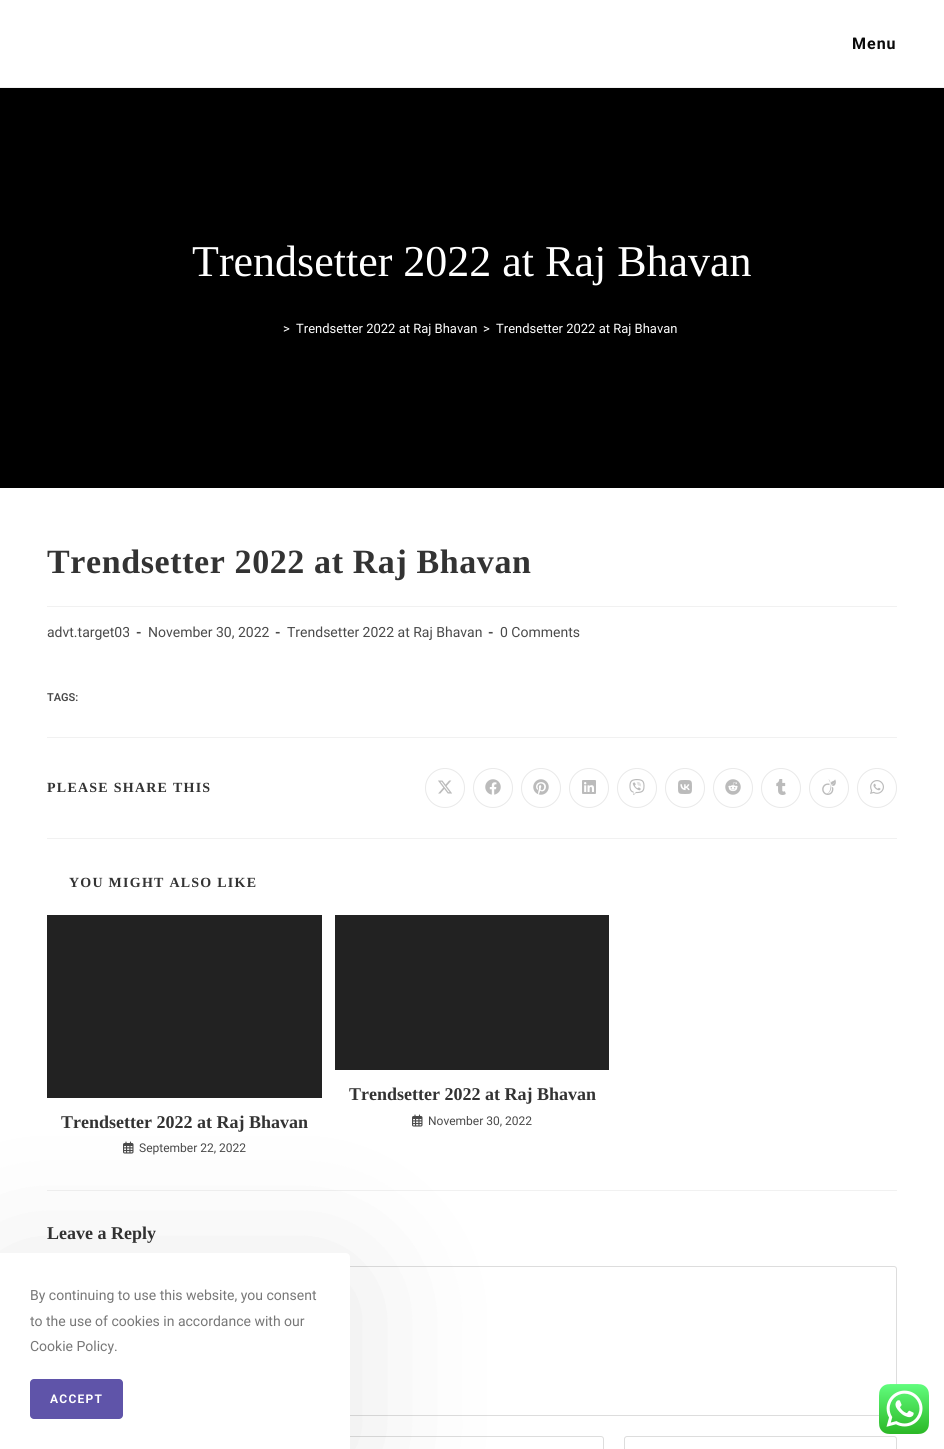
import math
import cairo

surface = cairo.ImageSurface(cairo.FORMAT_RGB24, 944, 1449)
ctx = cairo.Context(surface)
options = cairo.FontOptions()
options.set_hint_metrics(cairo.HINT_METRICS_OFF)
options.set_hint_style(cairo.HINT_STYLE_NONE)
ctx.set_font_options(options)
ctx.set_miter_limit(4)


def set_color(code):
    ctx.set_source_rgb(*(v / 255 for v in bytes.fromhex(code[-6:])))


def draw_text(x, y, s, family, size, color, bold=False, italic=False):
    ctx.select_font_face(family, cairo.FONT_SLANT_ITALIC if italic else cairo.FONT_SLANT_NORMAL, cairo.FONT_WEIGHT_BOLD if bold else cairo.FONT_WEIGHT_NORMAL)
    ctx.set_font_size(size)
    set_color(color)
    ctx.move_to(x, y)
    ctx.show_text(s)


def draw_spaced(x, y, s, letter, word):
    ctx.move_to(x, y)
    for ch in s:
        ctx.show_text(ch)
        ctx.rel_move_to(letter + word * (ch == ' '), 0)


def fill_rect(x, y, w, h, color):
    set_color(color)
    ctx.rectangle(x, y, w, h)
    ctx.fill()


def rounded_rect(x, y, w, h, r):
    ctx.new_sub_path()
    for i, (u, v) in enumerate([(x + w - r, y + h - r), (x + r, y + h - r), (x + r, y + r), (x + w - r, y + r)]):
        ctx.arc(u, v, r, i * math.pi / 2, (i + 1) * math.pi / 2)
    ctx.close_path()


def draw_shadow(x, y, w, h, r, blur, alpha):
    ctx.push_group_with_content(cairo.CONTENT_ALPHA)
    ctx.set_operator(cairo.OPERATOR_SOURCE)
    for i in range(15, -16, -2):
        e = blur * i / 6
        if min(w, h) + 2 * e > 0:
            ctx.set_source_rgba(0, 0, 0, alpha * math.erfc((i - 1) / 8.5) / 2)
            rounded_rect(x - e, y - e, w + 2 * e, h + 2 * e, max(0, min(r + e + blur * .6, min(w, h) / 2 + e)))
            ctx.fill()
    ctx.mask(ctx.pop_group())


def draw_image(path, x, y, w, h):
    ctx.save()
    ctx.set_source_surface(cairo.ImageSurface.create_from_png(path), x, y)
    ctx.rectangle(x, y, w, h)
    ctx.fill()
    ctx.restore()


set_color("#ffffff")
ctx.paint()
fill_rect(0, 87, 944, 1, "#f1f1f1")
ctx.select_font_face("Roboto", cairo.FONT_SLANT_NORMAL, cairo.FONT_WEIGHT_BOLD)
ctx.set_font_size(16)
set_color("#0a0a0a")
draw_spaced(852, 49, "Menu", 1, 0)
fill_rect(0, 88, 944, 400, "#000000")
draw_text(192, 276, "Trendsetter 2022 at Raj Bhavan", "Liberation Serif", 44, "#ffffff")
draw_text(283, 333, ">", "Roboto", 13, "#ffffff")
draw_text(296, 333, "Trendsetter 2022 at Raj Bhavan", "Roboto", 13, "#ffffff")
draw_text(483, 333, ">", "Roboto", 13, "#ffffff")
draw_text(496, 333, "Trendsetter 2022 at Raj Bhavan", "Roboto", 13, "#ffffff")
fill_rect(47, 606, 850, 1, "#f1f1f1")
ctx.select_font_face("Liberation Serif", cairo.FONT_SLANT_NORMAL, cairo.FONT_WEIGHT_BOLD)
ctx.set_font_size(34)
set_color("#333333")
draw_spaced(47, 573, "Trendsetter 2022 at Raj Bhavan", 0.6, 0)
draw_text(47, 637, "advt.target03", "Roboto", 14, "#4a4a4a")
draw_text(136, 637, "-", "Roboto", 14, "#4a4a4a", bold=True)
draw_text(148, 637, "November 30, 2022", "Roboto", 14, "#4a4a4a")
draw_text(275, 637, "-", "Roboto", 14, "#4a4a4a", bold=True)
draw_text(287, 637, "Trendsetter 2022 at Raj Bhavan", "Roboto", 14, "#4a4a4a")
draw_text(488, 637, "-", "Roboto", 14, "#4a4a4a", bold=True)
draw_text(500, 637, "0 Comments", "Roboto", 14, "#4a4a4a")
draw_text(47, 701, "TAGS:", "Roboto SemiBold", 11, "#4a4a4a")
fill_rect(47, 737, 850, 1, "#f1f1f1")
ctx.select_font_face("Liberation Serif", cairo.FONT_SLANT_NORMAL, cairo.FONT_WEIGHT_BOLD)
ctx.set_font_size(14)
set_color("#333333")
draw_spaced(47, 792, "PLEASE SHARE THIS", 1.25, 0)
ctx.new_path()
ctx.arc(445, 788, 19.5, 0, 2 * math.pi)
set_color("#e9e9e9")
ctx.set_line_width(1)
ctx.stroke()
draw_image("assets/img1.png", 438, 780, 14, 14)
ctx.arc(493, 788, 19.5, 0, 2 * math.pi)
ctx.stroke()
draw_image("assets/img2.png", 485, 779, 16, 16)
ctx.arc(541, 788, 19.5, 0, 2 * math.pi)
ctx.stroke()
draw_image("assets/img3.png", 533, 779, 16, 16)
ctx.arc(589, 788, 19.5, 0, 2 * math.pi)
ctx.stroke()
draw_image("assets/img4.png", 582, 780, 14, 14)
ctx.arc(637, 788, 19.5, 0, 2 * math.pi)
ctx.stroke()
draw_image("assets/img5.png", 629, 779, 16, 16)
ctx.arc(685, 788, 19.5, 0, 2 * math.pi)
ctx.stroke()
draw_image("assets/img6.png", 678, 780, 14, 14)
ctx.arc(733, 788, 19.5, 0, 2 * math.pi)
ctx.stroke()
draw_image("assets/img7.png", 725, 779, 16, 16)
ctx.arc(781, 788, 19.5, 0, 2 * math.pi)
ctx.stroke()
draw_image("assets/img8.png", 776, 779, 10, 16)
ctx.arc(829, 788, 19.5, 0, 2 * math.pi)
ctx.stroke()
draw_image("assets/img9.png", 822, 779, 14, 16)
ctx.arc(877, 788, 19.5, 0, 2 * math.pi)
ctx.stroke()
draw_image("assets/img10.png", 870, 780, 14, 14)
fill_rect(47, 838, 850, 1, "#f1f1f1")
set_color("#333333")
draw_spaced(69, 887, "YOU MIGHT ALSO LIKE", 1.25, 0)
fill_rect(335, 915, 274, 155, "#222222")
draw_text(349, 1100, "Trendsetter 2022 at Raj Bhavan", "Liberation Serif", 18, "#333333", bold=True)
draw_image("assets/img11.png", 412, 1114, 11, 13)
draw_text(428, 1125, "November 30, 2022", "Roboto", 12, "#4a4a4a")
fill_rect(47, 915, 275, 183, "#222222")
draw_text(61, 1128, "Trendsetter 2022 at Raj Bhavan", "Liberation Serif", 18, "#333333", bold=True)
draw_image("assets/img11.png", 123, 1141, 11, 13)
draw_text(139, 1152, "September 22, 2022", "Roboto", 12, "#4a4a4a")
fill_rect(47, 1190, 850, 1, "#f1f1f1")
draw_text(47, 1239, "Leave a Reply", "Liberation Serif", 18, "#333333", bold=True)
rounded_rect(47.5, 1266.5, 849, 149, 2.5)
set_color("#dddddd")
ctx.stroke()
rounded_rect(340.5, 1436.5, 263, 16, 2.5)
ctx.stroke()
rounded_rect(624.5, 1436.5, 272, 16, 2.5)
ctx.stroke()
set_color("#000000")
draw_shadow(0, 1273, 350, 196, 4, 75, 0.1)
set_color("#ffffff")
ctx.new_path()
ctx.move_to(0, 1253)
ctx.line_to(346, 1253)
ctx.curve_to(348, 1253, 350, 1255, 350, 1257)
ctx.line_to(350, 1449)
ctx.line_to(0, 1449)
ctx.close_path()
ctx.fill()
draw_text(30, 1300, "By continuing to use this website, you consent", "Roboto", 14, "#777777")
draw_text(30, 1326, "to the use of cookies in accordance with our", "Roboto", 14, "#777777")
draw_text(30, 1351, "Cookie Policy.", "Roboto", 14, "#777777")
set_color("#5f54a9")
rounded_rect(30, 1379, 93, 40, 4)
ctx.fill()
ctx.select_font_face("Roboto", cairo.FONT_SLANT_NORMAL, cairo.FONT_WEIGHT_BOLD)
ctx.set_font_size(12)
set_color("#ffffff")
draw_spaced(50, 1403, "ACCEPT", 1.25, 0)
draw_image("assets/img12.png", 879, 1384, 50, 50)
surface.write_to_png("output.png")
